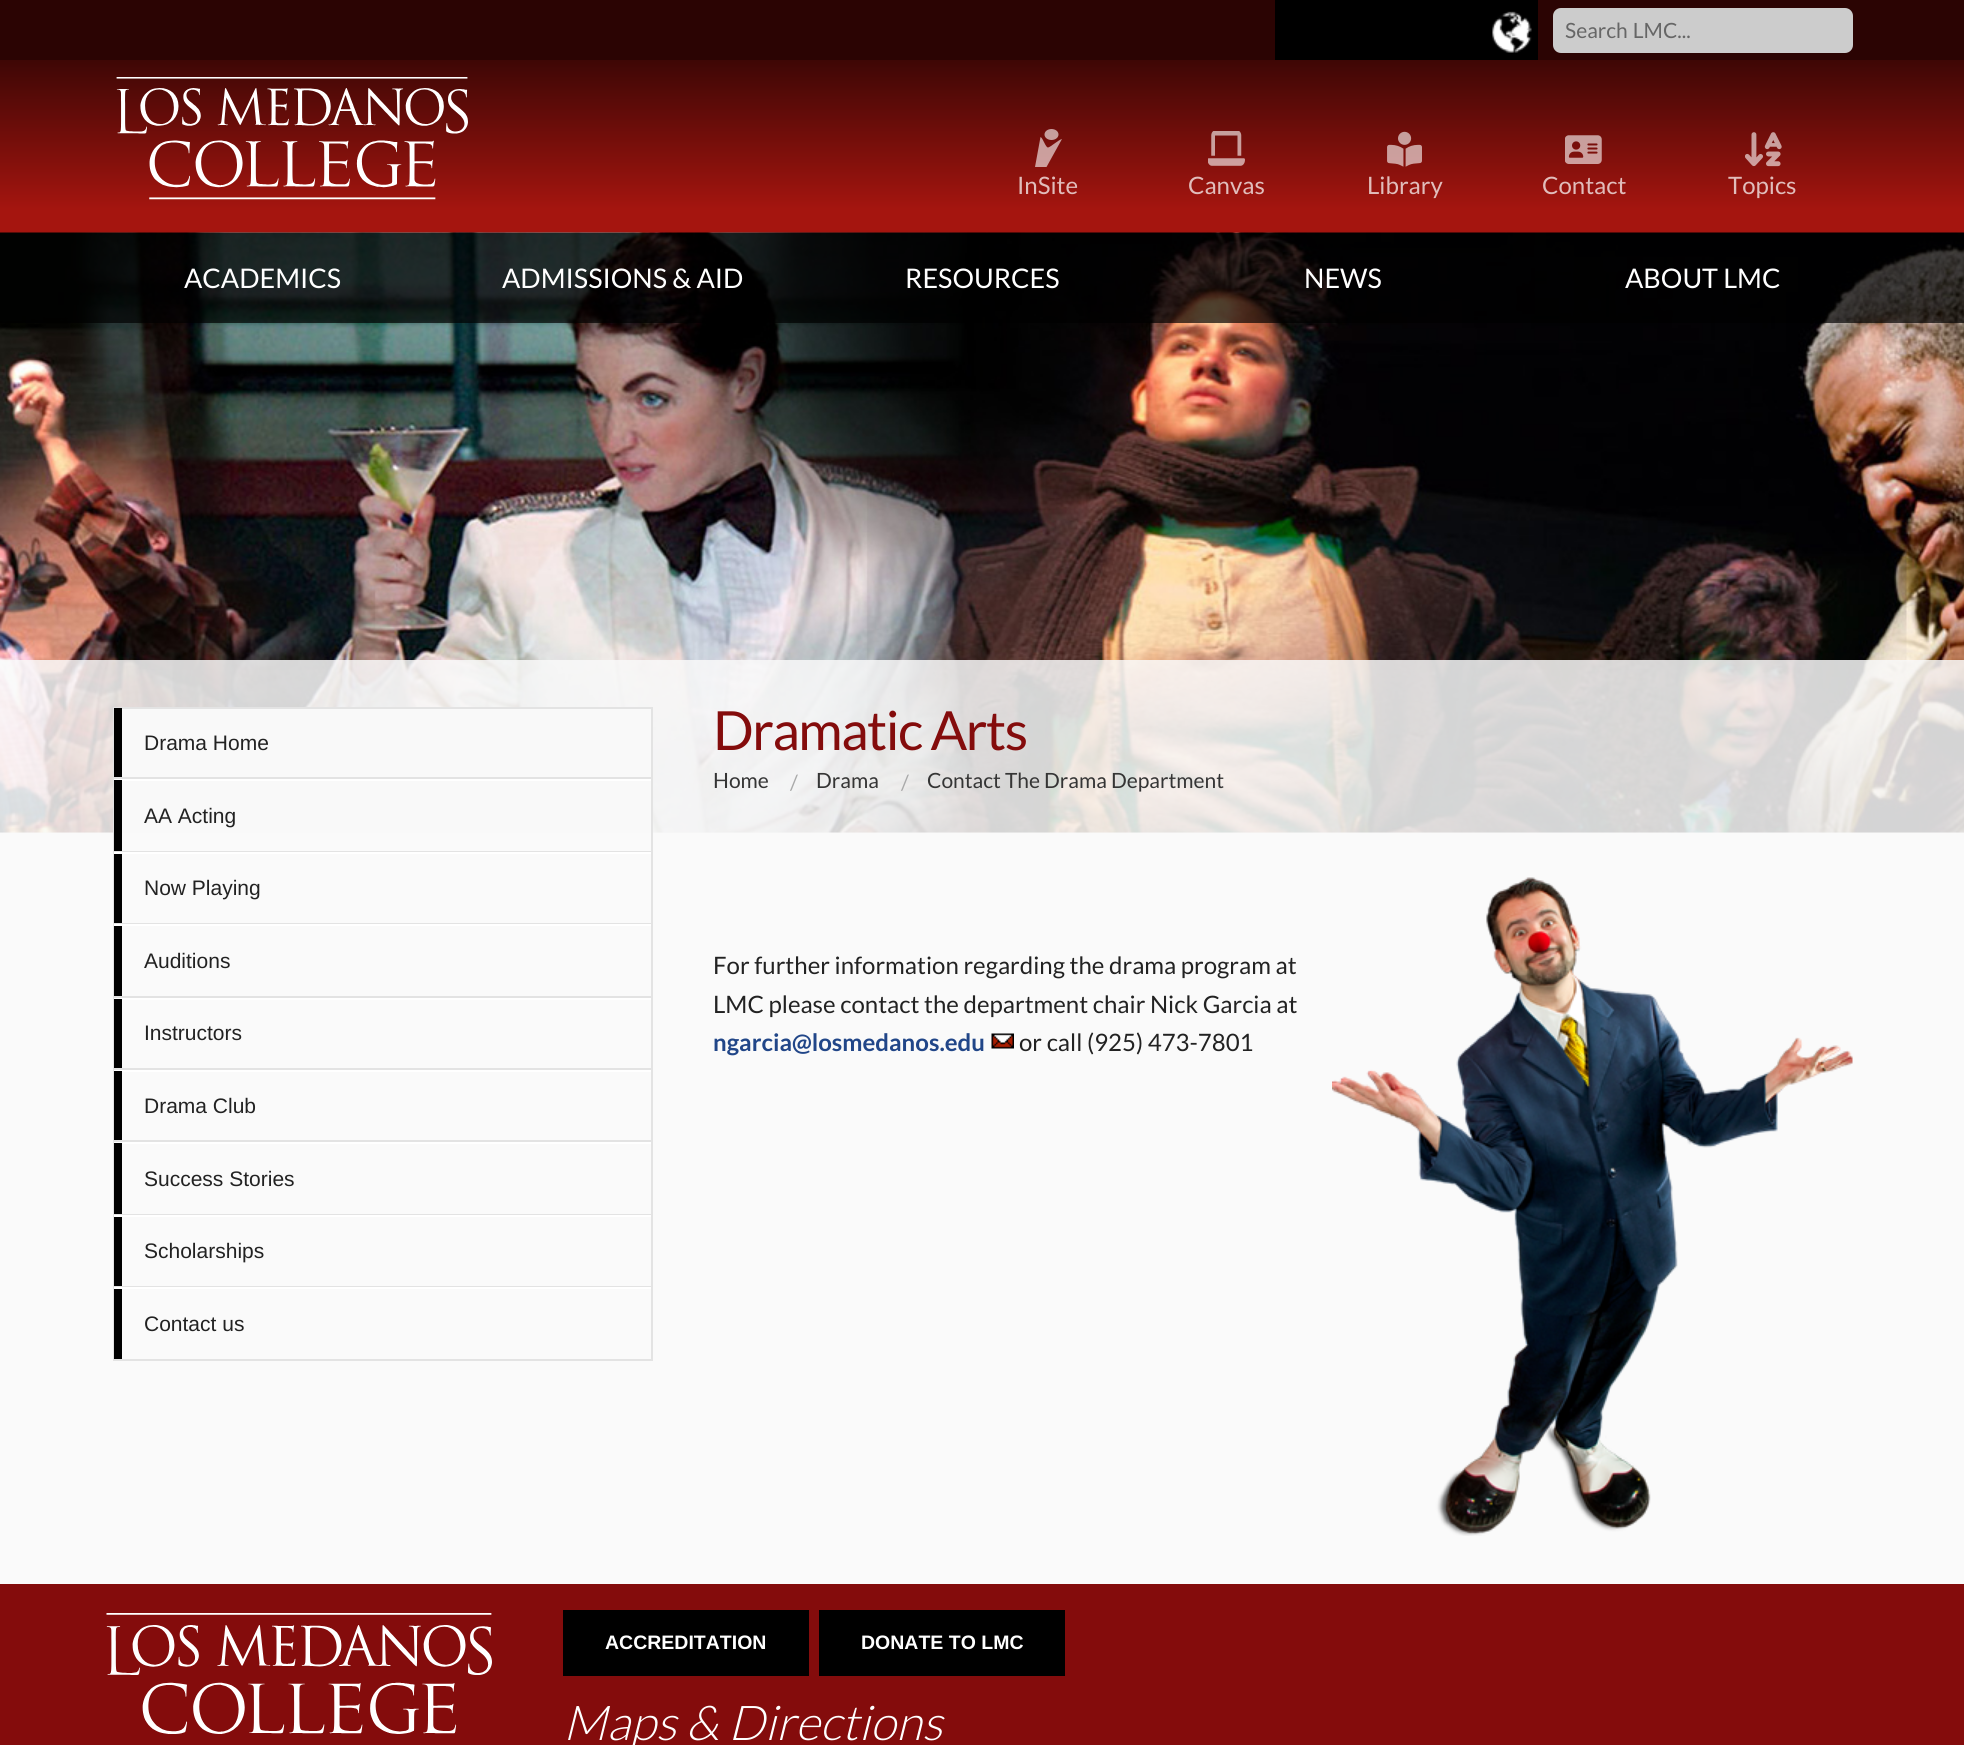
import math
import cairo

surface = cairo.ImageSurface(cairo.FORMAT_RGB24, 1964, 1745)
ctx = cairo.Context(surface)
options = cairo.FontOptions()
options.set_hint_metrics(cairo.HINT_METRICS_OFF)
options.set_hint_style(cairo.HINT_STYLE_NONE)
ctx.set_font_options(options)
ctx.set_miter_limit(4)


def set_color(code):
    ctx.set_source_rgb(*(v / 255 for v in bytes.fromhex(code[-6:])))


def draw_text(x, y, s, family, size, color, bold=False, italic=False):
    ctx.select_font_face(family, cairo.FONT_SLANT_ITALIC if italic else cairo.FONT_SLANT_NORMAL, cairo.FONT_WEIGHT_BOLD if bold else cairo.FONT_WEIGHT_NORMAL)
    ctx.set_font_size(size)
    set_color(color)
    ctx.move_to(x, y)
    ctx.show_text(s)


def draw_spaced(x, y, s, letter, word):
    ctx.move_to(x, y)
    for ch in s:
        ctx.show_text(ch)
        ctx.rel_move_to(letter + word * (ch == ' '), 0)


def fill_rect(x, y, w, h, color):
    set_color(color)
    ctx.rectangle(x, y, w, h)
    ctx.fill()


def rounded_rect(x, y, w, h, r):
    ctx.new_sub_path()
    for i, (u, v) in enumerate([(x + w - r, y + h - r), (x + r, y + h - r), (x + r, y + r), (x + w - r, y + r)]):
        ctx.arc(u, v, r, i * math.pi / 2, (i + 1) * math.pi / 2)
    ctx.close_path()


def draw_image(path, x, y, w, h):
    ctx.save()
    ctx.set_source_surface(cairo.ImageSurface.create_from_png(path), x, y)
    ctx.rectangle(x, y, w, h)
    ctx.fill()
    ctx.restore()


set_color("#ffffff")
ctx.paint()
fill_rect(0, 0, 1964, 60, "#2b0403")
fill_rect(1275, 0, 263, 60, "#000000")
draw_image("assets/img1.png", 1492, 11, 40, 42)
set_color("#cccccc")
rounded_rect(1553, 8, 300, 45, 8)
ctx.fill()
ctx.select_font_face("Lato")
ctx.set_font_size(21)
set_color("#666666")
draw_spaced(1565, 38, "Search LMC...", 0, 1)
gradient = cairo.LinearGradient(983, 60, 983, 233)
gradient.add_color_stop_rgba(0, 0.243, 0.027, 0.02, 1)
gradient.add_color_stop_rgba(0.87, 0.647, 0.082, 0.059, 1)
ctx.set_source(gradient)
ctx.rectangle(0, 60, 1964, 173)
ctx.fill()
draw_image("assets/img2.png", 116, 77, 352, 123)
ctx.set_source_rgba(1, 1, 1, 0.6)
ctx.new_path()
ctx.move_to(1035, 167)
ctx.line_to(1040.5, 137)
ctx.curve_to(1043, 138, 1045.5, 147.5, 1048, 147.5)
ctx.curve_to(1050, 147.5, 1059, 139.5, 1062, 139)
ctx.line_to(1046.5, 167)
ctx.close_path()
ctx.fill()
ctx.new_path()
ctx.move_to(1051.5, 129)
ctx.curve_to(1055.5, 129, 1058.5, 131.5, 1058.5, 134.5)
ctx.curve_to(1058.5, 137.5, 1055.5, 140, 1051.5, 140)
ctx.curve_to(1047.5, 140, 1044.5, 137.5, 1044.5, 134.5)
ctx.curve_to(1044.5, 131.5, 1047.5, 129, 1051.5, 129)
ctx.close_path()
ctx.fill()
draw_text(1017, 194, "InSite", "Lato", 24, "#e1bdbb")
draw_image("assets/img3.png", 1208, 131, 37, 35)
draw_text(1188, 194, "Canvas", "Lato", 24, "#e1bdbb")
draw_image("assets/img4.png", 1387, 131, 35, 36)
draw_text(1367, 194, "Library", "Lato", 24, "#e1bdbb")
draw_image("assets/img5.png", 1565, 135, 37, 29)
draw_text(1542, 194, "Contact", "Lato", 24, "#e1bdbb")
draw_image("assets/img6.png", 1745, 132, 37, 35)
draw_text(1728, 194, "Topics", "Lato", 24, "#e1bdbb")
fill_rect(0, 832, 1964, 1, "#eeeeee")
draw_image("assets/img7.png", 0, 232, 1964, 601)
ctx.set_source_rgba(0, 0, 0, 0.69)
ctx.rectangle(0, 233, 1964, 90)
ctx.fill()
draw_text(184, 288, "ACADEMICS", "Lato", 27, "#ffffff")
draw_text(502, 288, "ADMISSIONS & AID", "Lato", 27, "#ffffff")
draw_text(905, 288, "RESOURCES", "Lato", 27, "#ffffff")
draw_text(1304, 288, "NEWS", "Lato", 27, "#ffffff")
draw_text(1625, 288, "ABOUT LMC", "Lato", 27, "#ffffff")
ctx.set_source_rgba(0.976, 0.976, 0.976, 0.85)
ctx.rectangle(0, 660, 1964, 924)
ctx.fill()
fill_rect(122, 709, 529, 124, "#f9f9f9")
ctx.rectangle(114, 708, 538, 652)
set_color("#e3e3e3")
ctx.stroke()
fill_rect(114, 777, 537, 2, "#e3e3e3")
fill_rect(114, 708, 8, 69, "#000000")
draw_text(144, 750, "Drama Home", "Liberation Sans", 21, "#222222")
fill_rect(114, 779, 537, 2, "#ffffff")
fill_rect(114, 851, 537, 1, "#e3e3e3")
fill_rect(114, 780, 8, 71, "#000000")
draw_text(144, 823, "AA Acting", "Liberation Sans", 21, "#222222")
fill_rect(114, 852, 537, 2, "#ffffff")
fill_rect(114, 923, 537, 1, "#e3e3e3")
fill_rect(114, 854, 8, 69, "#000000")
draw_text(144, 895, "Now Playing", "Liberation Sans", 21, "#222222")
fill_rect(114, 924, 537, 2, "#ffffff")
fill_rect(114, 996, 537, 2, "#e3e3e3")
fill_rect(114, 926, 8, 70, "#000000")
draw_text(144, 968, "Auditions", "Liberation Sans", 21, "#222222")
fill_rect(114, 998, 537, 2, "#ffffff")
fill_rect(114, 1068, 537, 2, "#e3e3e3")
fill_rect(114, 999, 8, 69, "#000000")
draw_text(144, 1040, "Instructors", "Liberation Sans", 21, "#222222")
fill_rect(114, 1070, 537, 2, "#ffffff")
fill_rect(114, 1140, 537, 2, "#e3e3e3")
fill_rect(114, 1071, 8, 69, "#000000")
draw_text(144, 1113, "Drama Club", "Liberation Sans", 21, "#222222")
fill_rect(114, 1142, 537, 2, "#ffffff")
fill_rect(114, 1214, 537, 1, "#e3e3e3")
fill_rect(114, 1143, 8, 71, "#000000")
draw_text(144, 1186, "Success Stories", "Liberation Sans", 21, "#222222")
fill_rect(114, 1215, 537, 2, "#ffffff")
fill_rect(114, 1286, 537, 1, "#e3e3e3")
fill_rect(114, 1217, 8, 69, "#000000")
draw_text(144, 1258, "Scholarships", "Liberation Sans", 21, "#222222")
fill_rect(114, 1287, 537, 2, "#ffffff")
fill_rect(114, 1289, 8, 70, "#000000")
draw_text(144, 1331, "Contact us", "Liberation Sans", 21, "#222222")
ctx.select_font_face("Lato")
ctx.set_font_size(54)
set_color("#840c0c")
draw_spaced(713, 750, "Dramatic Arts", -1.5, 0)
draw_text(713, 788, "Home", "Lato", 21, "#353535")
draw_text(790, 790, "/", "Lato", 21, "#aaaaaa")
draw_text(816, 788, "Drama", "Lato", 21, "#353535")
draw_text(901, 790, "/", "Lato", 21, "#aaaaaa")
draw_text(927, 788, "Contact The Drama Department", "Lato", 21, "#353535")
draw_text(713, 974, "For further information regarding the drama program at", "Lato", 24, "#222222")
draw_text(713, 1013, "LMC please contact the department chair Nick Garcia at", "Lato", 24, "#222222")
draw_text(713, 1051, "ngarcia@losmedanos.edu", "Lato", 24, "#214688", bold=True)
draw_image("assets/img8.png", 991, 1033, 23, 16)
draw_text(1019, 1051, "or call (925) 473-7801", "Lato", 24, "#222222")
draw_image("assets/img9.png", 1332, 877, 521, 659)
fill_rect(0, 1584, 1964, 161, "#840c0c")
draw_image("assets/img10.png", 106, 1613, 386, 121)
fill_rect(563, 1610, 246, 66, "#000000")
draw_text(605, 1649, "ACCREDITATION", "Liberation Sans", 19.5, "#ffffff", bold=True)
fill_rect(819, 1610, 246, 66, "#000000")
draw_text(861, 1649, "DONATE TO LMC", "Liberation Sans", 19.5, "#ffffff", bold=True)
draw_text(563, 1740, "Maps & Directions", "Lato Light", 48, "#ffffff", italic=True)
surface.write_to_png("output.png")
